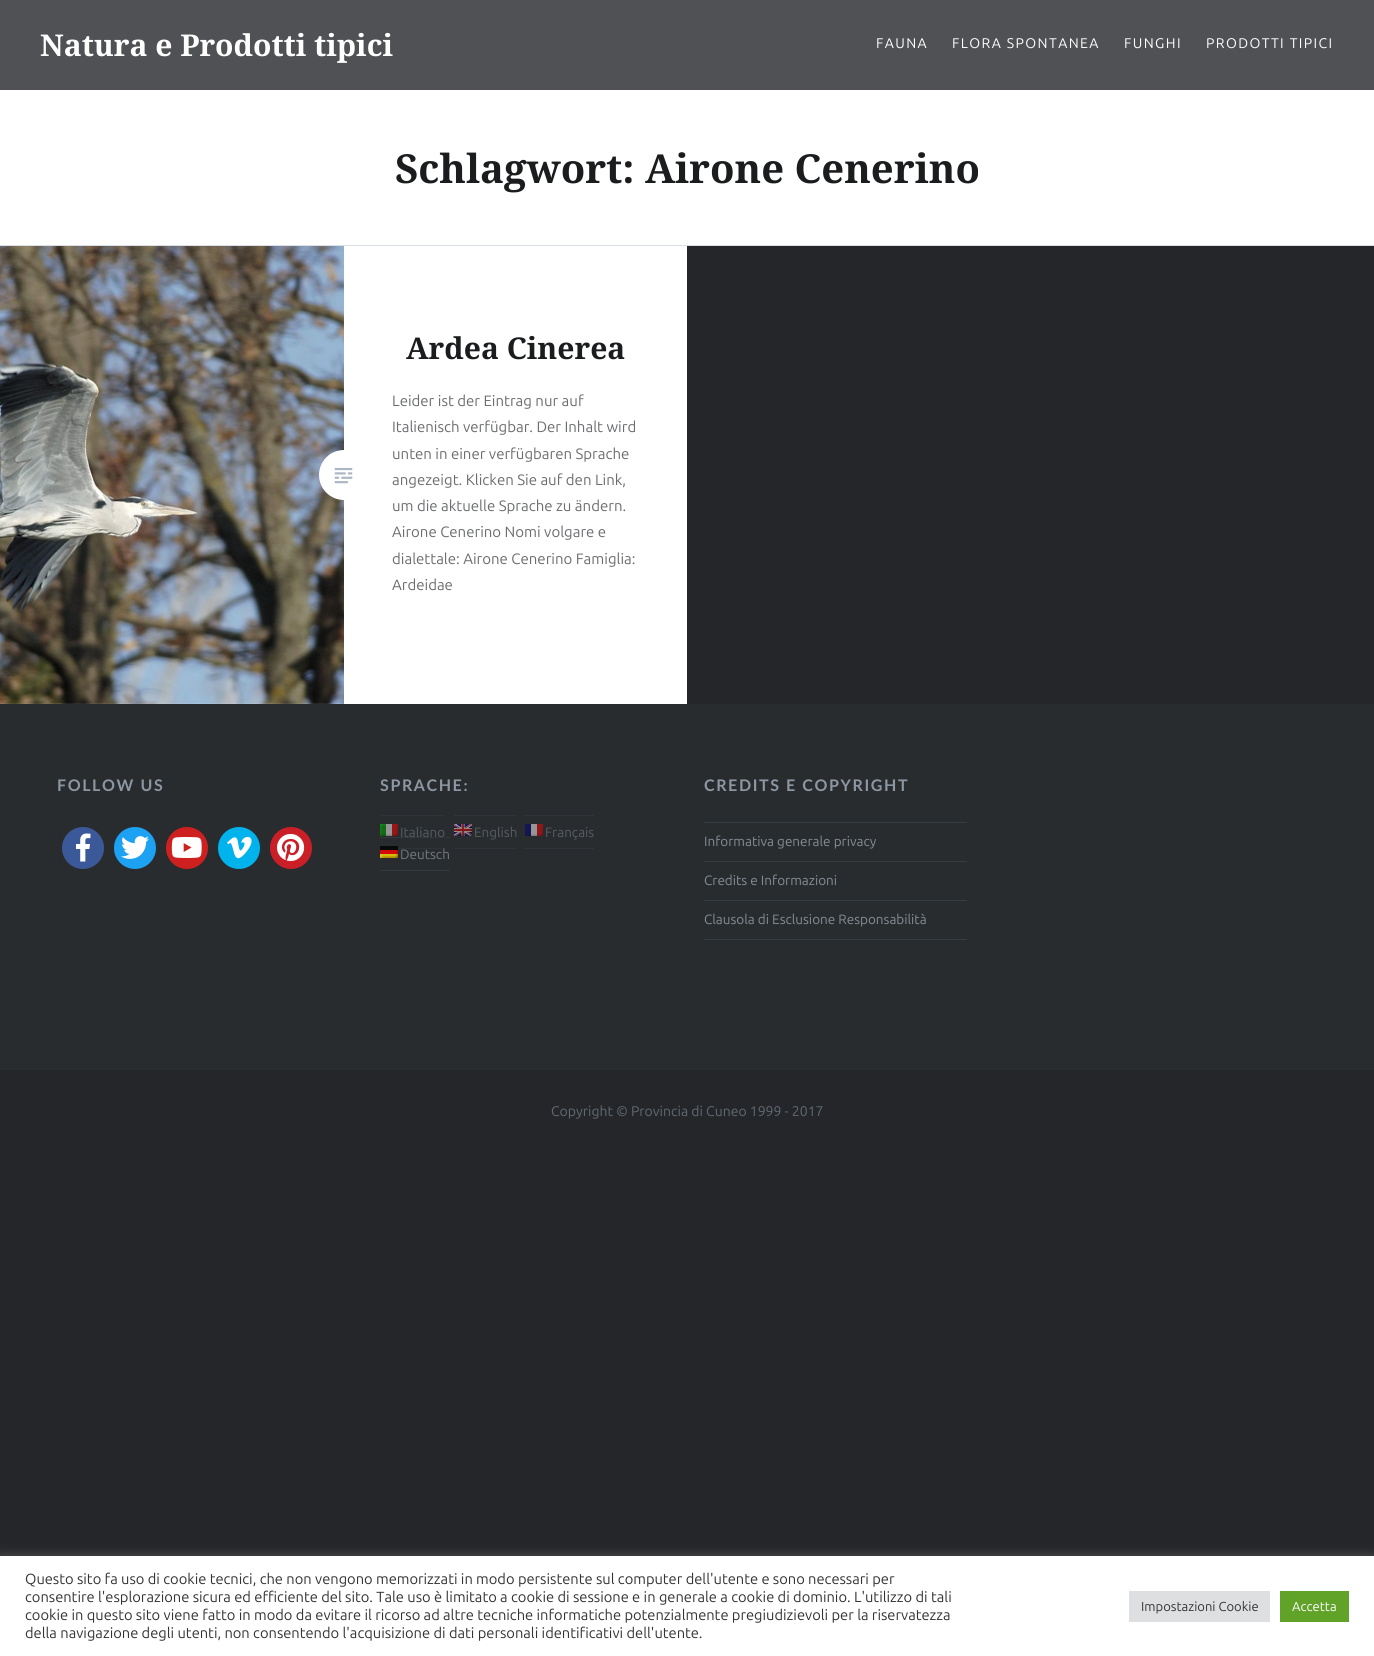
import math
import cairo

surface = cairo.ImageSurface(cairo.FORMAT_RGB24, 1374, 1656)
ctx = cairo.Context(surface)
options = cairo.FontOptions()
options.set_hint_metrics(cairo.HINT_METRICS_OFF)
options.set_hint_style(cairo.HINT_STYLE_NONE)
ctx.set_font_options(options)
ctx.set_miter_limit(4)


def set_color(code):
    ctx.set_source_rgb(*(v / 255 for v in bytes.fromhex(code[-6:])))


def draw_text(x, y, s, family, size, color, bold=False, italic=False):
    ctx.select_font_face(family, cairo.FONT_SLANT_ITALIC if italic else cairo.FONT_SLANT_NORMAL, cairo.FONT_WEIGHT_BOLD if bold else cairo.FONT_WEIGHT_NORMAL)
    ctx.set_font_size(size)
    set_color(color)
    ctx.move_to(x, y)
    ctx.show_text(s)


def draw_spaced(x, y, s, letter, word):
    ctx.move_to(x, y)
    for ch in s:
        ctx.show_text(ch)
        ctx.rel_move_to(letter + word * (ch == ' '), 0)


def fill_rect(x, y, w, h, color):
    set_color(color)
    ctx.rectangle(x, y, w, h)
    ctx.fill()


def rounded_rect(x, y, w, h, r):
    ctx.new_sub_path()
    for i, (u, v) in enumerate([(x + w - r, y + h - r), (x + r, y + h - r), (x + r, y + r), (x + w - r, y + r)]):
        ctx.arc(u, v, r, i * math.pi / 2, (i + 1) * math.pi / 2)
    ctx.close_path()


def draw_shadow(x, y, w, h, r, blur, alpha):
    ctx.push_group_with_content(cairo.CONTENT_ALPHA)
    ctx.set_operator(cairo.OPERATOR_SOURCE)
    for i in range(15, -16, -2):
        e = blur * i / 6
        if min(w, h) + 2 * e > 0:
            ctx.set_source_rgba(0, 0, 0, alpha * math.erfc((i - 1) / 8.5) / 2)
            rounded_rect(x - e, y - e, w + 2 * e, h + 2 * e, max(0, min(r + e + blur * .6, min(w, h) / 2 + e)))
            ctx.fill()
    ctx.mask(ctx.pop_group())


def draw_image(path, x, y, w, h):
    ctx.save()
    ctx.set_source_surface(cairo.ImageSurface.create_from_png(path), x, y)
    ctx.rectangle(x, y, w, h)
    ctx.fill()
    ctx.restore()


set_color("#242629")
ctx.paint()
fill_rect(0, 90, 1374, 155, "#ffffff")
fill_rect(0, 0, 1374, 90, "#505154")
draw_text(40, 56, "Natura e Prodotti tipici", "Noto Serif", 30, "#ffffff", bold=True)
ctx.select_font_face("Ubuntu")
ctx.set_font_size(14)
draw_spaced(876, 48, "FAUNA", 1.4, 0)
draw_spaced(952, 48, "FLORA SPONTANEA", 1.4, 0)
draw_spaced(1124, 48, "FUNGHI", 1.4, 0)
draw_spaced(1206, 48, "PRODOTTI TIPICI", 1.4, 0)
fill_rect(0, 245, 1374, 1, "#d9dfe5")
draw_text(395, 183, "Schlagwort: Airone Cenerino", "Noto Serif", 40, "#1a1c1e", bold=True)
fill_rect(0, 246, 687, 458, "#ffffff")
draw_image("assets/img1.png", 0, 246, 344, 458)
ctx.arc(344, 475, 25, 0, 2 * math.pi)
ctx.fill()
draw_text(406, 359, "Ardea Cinerea", "Noto Serif", 30, "#1a1c1e", bold=True)
draw_text(392, 406, "Leider ist der Eintrag nur auf", "Ubuntu", 15, "#6a6c6e")
draw_text(392, 432, "Italienisch verfügbar. Der Inhalt wird", "Ubuntu", 15, "#6a6c6e")
draw_text(392, 459, "unten in einer verfügbaren Sprache", "Ubuntu", 15, "#6a6c6e")
draw_text(392, 485, "angezeigt. Klicken Sie auf den Link,", "Ubuntu", 15, "#6a6c6e")
draw_text(392, 511, "um die aktuelle Sprache zu ändern.", "Ubuntu", 15, "#6a6c6e")
draw_text(392, 537, "Airone Cenerino Nomi volgare e", "Ubuntu", 15, "#6a6c6e")
draw_text(392, 564, "dialettale: Airone Cenerino Famiglia:", "Ubuntu", 15, "#6a6c6e")
draw_text(392, 590, "Ardeidae", "Ubuntu", 15, "#6a6c6e")
draw_image("assets/img2.png", 334, 467, 19, 17)
fill_rect(0, 704, 1374, 366, "#292c2f")
ctx.select_font_face("Lato", cairo.FONT_SLANT_NORMAL, cairo.FONT_WEIGHT_BOLD)
ctx.set_font_size(16)
set_color("#8c97a2")
draw_spaced(57, 791, "FOLLOW US", 1.6, 0)
set_color("#3b5998")
ctx.new_path()
ctx.arc(83, 848, 21, 0, 2 * math.pi)
ctx.fill()
draw_image("assets/img3.png", 76, 833, 15, 29)
set_color("#1da1f2")
ctx.arc(135, 848, 21, 0, 2 * math.pi)
ctx.fill()
draw_image("assets/img4.png", 121, 836, 28, 23)
set_color("#cd201f")
ctx.arc(187, 848, 21, 0, 2 * math.pi)
ctx.fill()
draw_image("assets/img5.png", 171, 837, 31, 21)
set_color("#00b3ec")
ctx.arc(239, 848, 21, 0, 2 * math.pi)
ctx.fill()
draw_image("assets/img6.png", 227, 837, 25, 22)
set_color("#cb1f27")
ctx.arc(291, 848, 21, 0, 2 * math.pi)
ctx.fill()
draw_image("assets/img7.png", 277, 833, 28, 29)
set_color("#8c97a2")
draw_spaced(380, 791, "SPRACHE:", 1.6, 0)
draw_image("assets/img8.png", 380, 824, 18, 12)
draw_text(400, 837, "Italiano", "Ubuntu", 13.5, "#575d62")
fill_rect(380, 815, 65, 1, "#303438")
fill_rect(380, 848, 65, 1, "#303438")
draw_image("assets/img9.png", 454, 824, 18, 12)
draw_text(474, 837, "English", "Ubuntu", 13.5, "#575d62")
fill_rect(454, 815, 63, 1, "#303438")
fill_rect(454, 848, 63, 1, "#303438")
draw_image("assets/img10.png", 525, 824, 18, 12)
draw_text(545, 837, "Français", "Ubuntu", 13.5, "#575d62")
fill_rect(525, 815, 69, 1, "#303438")
fill_rect(525, 848, 69, 1, "#303438")
draw_image("assets/img11.png", 380, 846, 18, 12)
draw_text(400, 859, "Deutsch", "Ubuntu", 13.5, "#737a81")
ctx.set_source_rgba(0.212, 0.231, 0.251, 0.8)
ctx.rectangle(380, 837, 70, 1)
ctx.fill()
fill_rect(380, 870, 70, 1, "#33383d")
ctx.select_font_face("Lato", cairo.FONT_SLANT_NORMAL, cairo.FONT_WEIGHT_BOLD)
ctx.set_font_size(16)
set_color("#8c97a2")
draw_spaced(704, 791, "CREDITS E COPYRIGHT", 1.6, 0)
fill_rect(704, 822, 263, 1, "#363b40")
fill_rect(704, 861, 263, 1, "#363b40")
draw_text(704, 846, "Informativa generale privacy", "Ubuntu", 13.5, "#858d95")
fill_rect(704, 900, 263, 1, "#363b40")
draw_text(704, 885, "Credits e Informazioni", "Ubuntu", 13.5, "#858d95")
fill_rect(704, 939, 263, 1, "#363b40")
draw_text(704, 924, "Clausola di Esclusione Responsabilità", "Ubuntu", 13.5, "#858d95")
draw_text(551, 1116, "Copyright © Provincia di Cuneo 1999 - 2017", "Ubuntu", 14, "#616a74")
set_color("#acabab")
draw_shadow(0, 1555, 1374, 100, 0, 5, 0.3)
fill_rect(0, 1556, 1374, 100, "#ffffff")
draw_text(25, 1584, "Questo sito fa uso di cookie tecnici, che non vengono memorizzati in modo persistente sul computer dell'utente e sono necessari per", "Ubuntu", 14.67, "#333333")
draw_text(25, 1602, "consentire l'esplorazione sicura ed efficiente del sito. Tale uso è limitato a cookie di sessione e in generale a cookie di dominio. L'utilizzo di tali", "Ubuntu", 14.67, "#333333")
draw_text(25, 1620, "cookie in questo sito viene fatto in modo da evitare il ricorso ad altre tecniche informatiche potenzialmente pregiudizievoli per la riservatezza", "Ubuntu", 14.67, "#333333")
draw_text(25, 1638, "della navigazione degli utenti, non consentendo l'acquisizione di dati personali identificativi dell'utente.", "Ubuntu", 14.67, "#333333")
fill_rect(1129, 1591, 141, 31, "#dedfe0")
draw_text(1141, 1611, "Impostazioni Cookie", "Ubuntu", 13, "#333333")
fill_rect(1280, 1591, 69, 31, "#61a229")
draw_text(1292, 1611, "Accetta", "Ubuntu", 13, "#ffffff")
surface.write_to_png("output.png")
